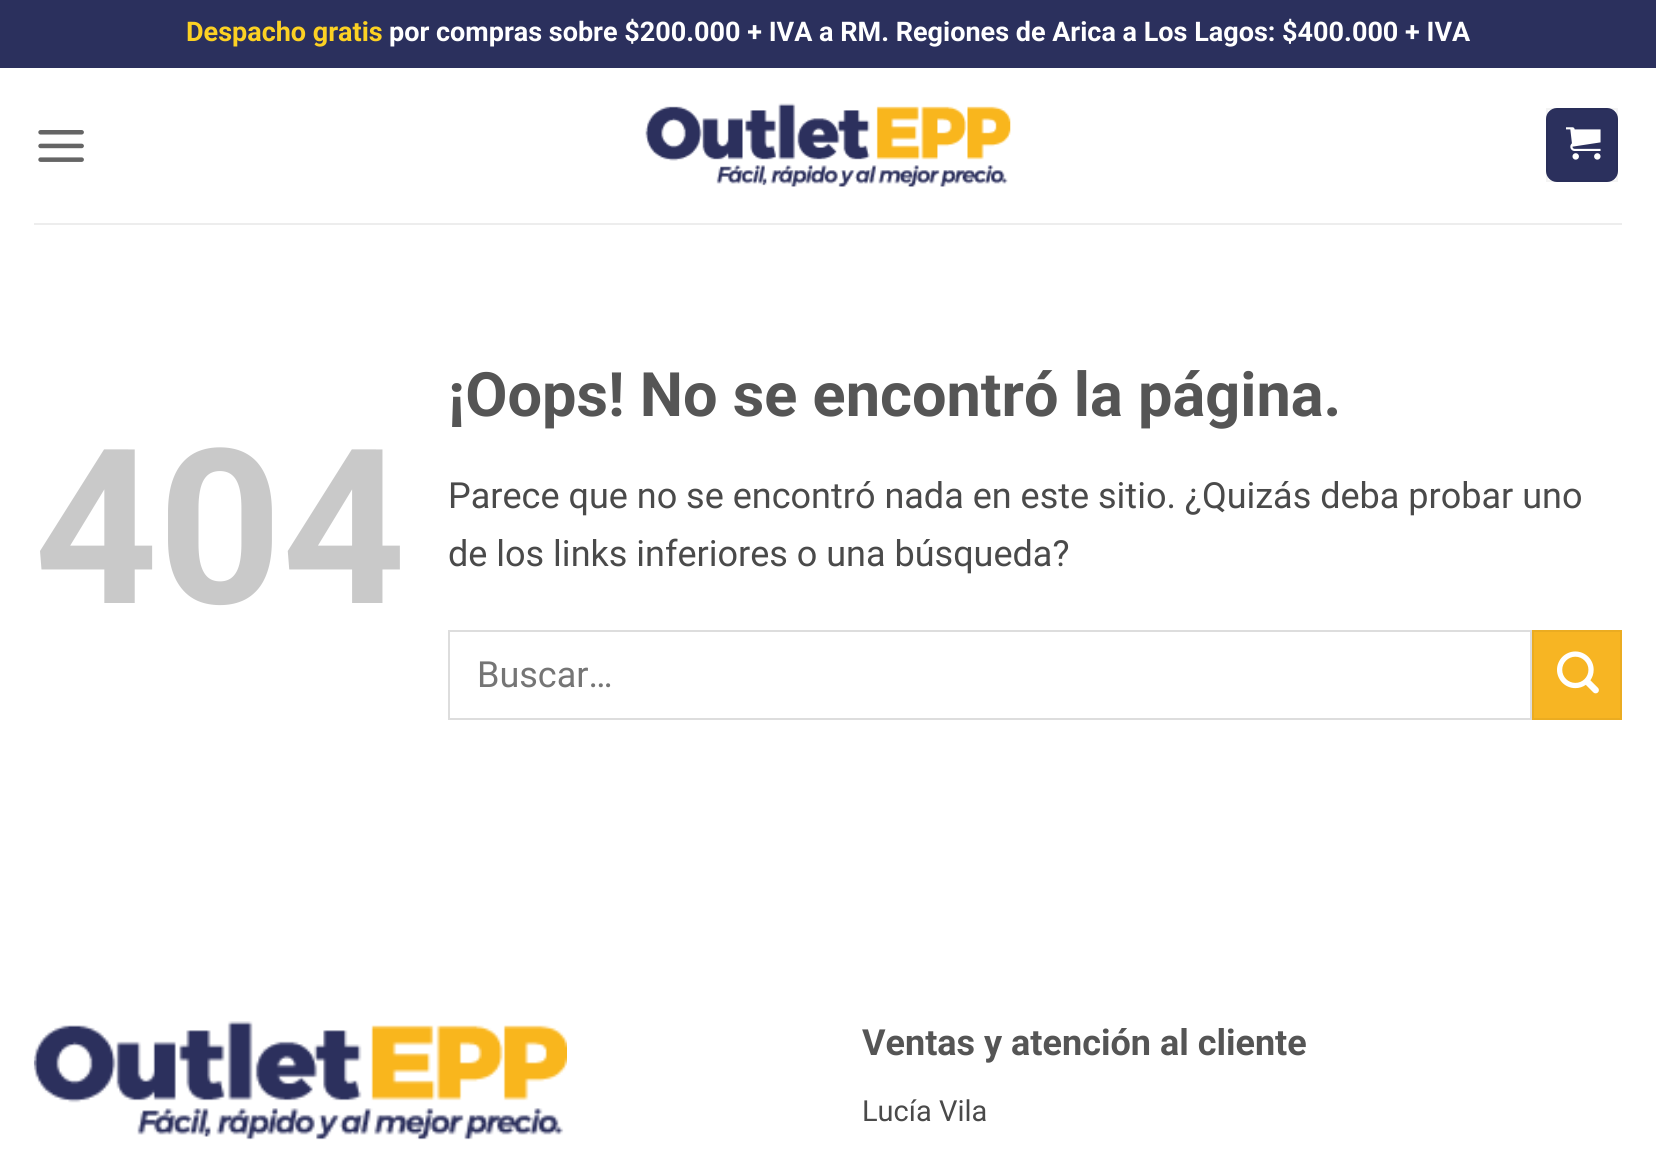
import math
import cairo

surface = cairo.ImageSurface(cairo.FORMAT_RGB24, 1656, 1159)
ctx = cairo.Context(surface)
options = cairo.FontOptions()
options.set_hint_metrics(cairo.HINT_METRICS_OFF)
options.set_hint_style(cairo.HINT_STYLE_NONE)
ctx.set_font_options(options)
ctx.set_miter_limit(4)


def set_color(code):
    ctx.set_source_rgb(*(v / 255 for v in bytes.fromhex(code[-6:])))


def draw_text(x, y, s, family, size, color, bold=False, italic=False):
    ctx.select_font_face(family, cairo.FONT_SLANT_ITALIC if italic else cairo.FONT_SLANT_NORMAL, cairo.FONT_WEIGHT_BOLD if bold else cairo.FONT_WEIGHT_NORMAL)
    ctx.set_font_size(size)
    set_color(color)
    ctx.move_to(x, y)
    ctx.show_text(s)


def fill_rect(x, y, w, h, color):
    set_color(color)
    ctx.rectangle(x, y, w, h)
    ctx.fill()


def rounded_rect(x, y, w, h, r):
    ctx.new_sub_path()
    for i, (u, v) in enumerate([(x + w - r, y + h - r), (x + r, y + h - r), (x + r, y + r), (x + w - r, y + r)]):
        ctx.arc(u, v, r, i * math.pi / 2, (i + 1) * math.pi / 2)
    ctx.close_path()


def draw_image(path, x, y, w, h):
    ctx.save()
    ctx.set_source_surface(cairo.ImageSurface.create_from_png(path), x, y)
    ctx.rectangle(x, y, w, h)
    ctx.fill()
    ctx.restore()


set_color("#ffffff")
ctx.paint()
fill_rect(0, 0, 1656, 68, "#2b305d")
draw_text(186, 41, "Despacho gratis", "Roboto", 27, "#fcd123", bold=True)
draw_text(389, 41, "por compras sobre $200.000 + IVA a RM. Regiones de Arica a Los Lagos: $400.000 + IVA", "Roboto", 27, "#ffffff", bold=True)
draw_image("assets/img1.png", 38, 130, 46, 32)
draw_image("assets/img2.png", 645, 103, 366, 84)
set_color("#2b305d")
rounded_rect(1546, 108, 72, 74, 11)
ctx.fill()
ctx.rectangle(1547, 109, 70, 72)
ctx.set_source_rgba(0, 0, 0, 0.05)
ctx.stroke()
draw_image("assets/img3.png", 1566, 127, 35, 33)
fill_rect(34, 223, 1588, 2, "#ededed")
draw_text(34, 603, "404", "Roboto", 216, "#c9c9c9", bold=True)
draw_text(448, 416, "¡Oops! No se encontró la página.", "Roboto", 61.25, "#555555", bold=True)
draw_text(448, 508, "Parece que no se encontró nada en este sitio. ¿Quizás deba probar uno", "Roboto", 36, "#4a4a4a")
draw_text(448, 566, "de los links inferiores o una búsqueda?", "Roboto", 36, "#4a4a4a")
ctx.rectangle(449, 631, 1082, 88)
set_color("#dddddd")
ctx.stroke()
draw_text(477, 687, "Buscar…", "Roboto", 36, "#757575")
set_color("#f7b523")
ctx.rectangle(1533, 631, 88, 88)
ctx.fill_preserve()
set_color("#ebac21")
ctx.stroke()
draw_image("assets/img4.png", 1557, 651, 42, 43)
draw_image("assets/img5.png", 33, 1021, 534, 119)
draw_text(862, 1055, "Ventas y atención al cliente", "Roboto", 36, "#555555", bold=True)
draw_text(862, 1121, "Lucía Vila", "Roboto", 29, "#4a4a4a")
surface.write_to_png("output.png")
